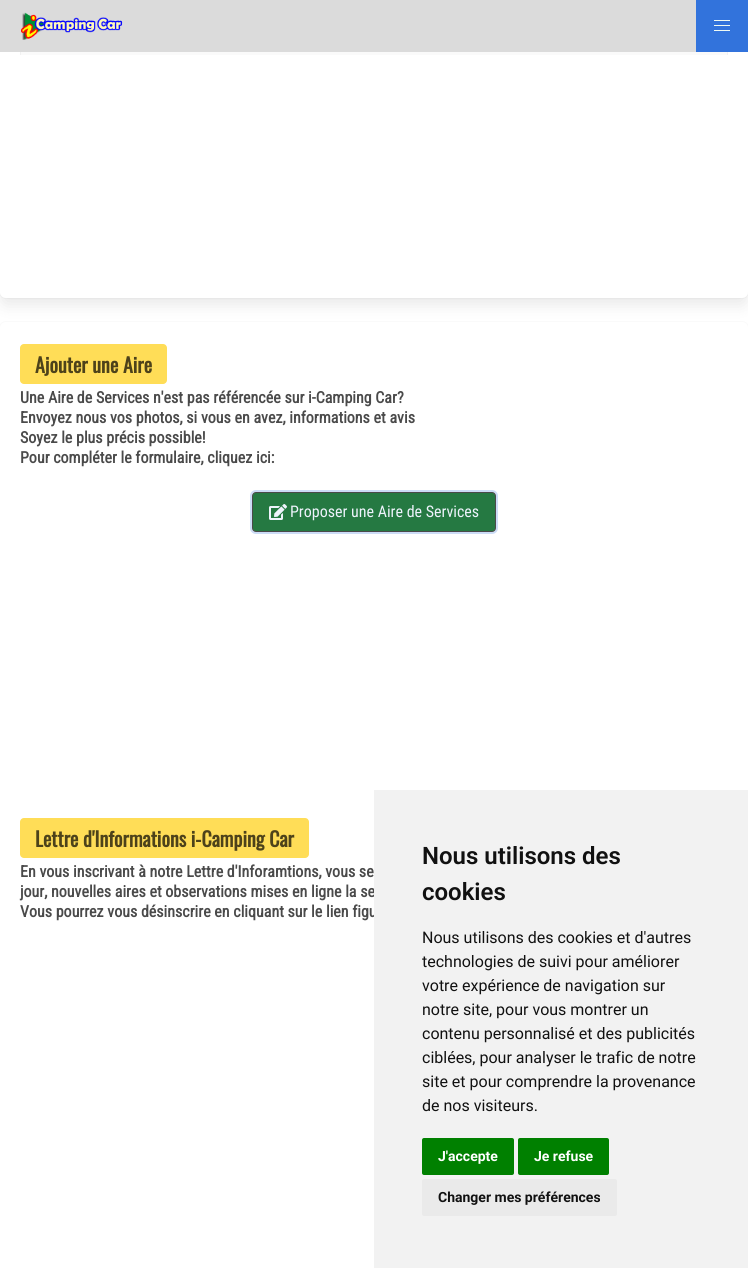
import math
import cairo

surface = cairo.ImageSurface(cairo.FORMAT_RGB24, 748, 1268)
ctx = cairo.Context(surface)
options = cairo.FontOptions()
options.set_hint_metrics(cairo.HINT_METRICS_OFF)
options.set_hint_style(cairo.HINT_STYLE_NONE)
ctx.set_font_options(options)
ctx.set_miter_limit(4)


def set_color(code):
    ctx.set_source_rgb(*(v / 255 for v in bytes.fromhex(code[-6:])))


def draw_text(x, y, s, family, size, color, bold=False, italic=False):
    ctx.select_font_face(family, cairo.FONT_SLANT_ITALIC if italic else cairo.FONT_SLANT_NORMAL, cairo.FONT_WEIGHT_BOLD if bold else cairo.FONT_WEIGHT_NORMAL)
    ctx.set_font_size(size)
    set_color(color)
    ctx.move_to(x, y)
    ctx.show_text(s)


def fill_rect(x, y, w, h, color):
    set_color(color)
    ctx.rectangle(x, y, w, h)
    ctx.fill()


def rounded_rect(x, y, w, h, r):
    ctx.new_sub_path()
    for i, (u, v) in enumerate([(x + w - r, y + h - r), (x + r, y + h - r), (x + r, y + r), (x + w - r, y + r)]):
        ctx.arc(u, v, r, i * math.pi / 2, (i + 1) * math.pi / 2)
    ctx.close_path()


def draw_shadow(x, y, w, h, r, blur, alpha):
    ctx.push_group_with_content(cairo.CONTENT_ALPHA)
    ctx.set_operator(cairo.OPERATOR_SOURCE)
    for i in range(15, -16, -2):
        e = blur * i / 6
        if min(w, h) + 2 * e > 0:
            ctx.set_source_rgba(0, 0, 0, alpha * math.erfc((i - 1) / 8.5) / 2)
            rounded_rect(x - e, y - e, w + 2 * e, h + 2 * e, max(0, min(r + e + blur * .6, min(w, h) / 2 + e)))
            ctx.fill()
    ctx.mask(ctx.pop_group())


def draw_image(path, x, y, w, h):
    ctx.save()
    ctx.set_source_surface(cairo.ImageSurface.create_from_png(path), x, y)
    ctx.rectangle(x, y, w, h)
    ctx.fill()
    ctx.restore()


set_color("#ffffff")
ctx.paint()
rounded_rect(-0.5, -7.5, 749, 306, 6.5)
set_color("#fafafa")
ctx.set_line_width(1)
ctx.stroke()
set_color("#0a0a0a")
draw_shadow(2, -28, 744, 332, 4, 8, 0.1)
set_color("#ffffff")
rounded_rect(0, -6, 748, 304, 6)
ctx.fill()
fill_rect(0, 0, 696, 52, "#dbdbdb")
draw_image("assets/img1.png", 21, 12, 102, 28)
fill_rect(696, 0, 52, 52, "#3273dc")
fill_rect(714, 20, 16, 1, "#effaf3")
fill_rect(714, 25, 16, 1, "#effaf3")
fill_rect(714, 30, 16, 1, "#effaf3")
fill_rect(727, 52, 1, 3, "#f1f1f1")
fill_rect(20, 52, 1, 3, "#f1f1f1")
fill_rect(21, 52, 706, 3, "#fafafa")
rounded_rect(-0.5, 321.5, 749, 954, 6.5)
ctx.stroke()
set_color("#ffdd57")
rounded_rect(20, 344, 147, 40, 4)
ctx.fill()
draw_text(35, 373, "Ajouter une Aire", "Oswald", 20, "#4d421a", bold=True)
draw_text(20, 403, "Une Aire de Services n'est pas référencée sur i-Camping Car?", "Roboto Condensed", 16, "#4a4a4a", bold=True)
draw_text(20, 423, "Envoyez nous vos photos, si vous en avez, informations et avis", "Roboto Condensed", 16, "#4a4a4a", bold=True)
draw_text(20, 443, "Soyez le plus précis possible!", "Roboto Condensed", 16, "#4a4a4a", bold=True)
draw_text(20, 463, "Pour compléter le formulaire, cliquez ici:", "Roboto Condensed", 16, "#4a4a4a", bold=True)
rounded_rect(251, 491, 246, 42, 5)
set_color("#ccdcf6")
ctx.set_line_width(2)
ctx.stroke()
set_color("#257942")
rounded_rect(252.5, 492.5, 243, 39, 3.5)
ctx.fill_preserve()
set_color("#4a4a4a")
ctx.set_line_width(1)
ctx.stroke()
draw_image("assets/img2.png", 269, 504, 18, 16)
draw_text(290, 517, "Proposer une Aire de Services", "Roboto Condensed", 16, "#eef3fc")
set_color("#ffdd57")
rounded_rect(20, 818, 289, 40, 4)
ctx.fill()
draw_text(35, 847, "Lettre d'Informations i-Camping Car", "Oswald", 20, "#4d421a", bold=True)
draw_text(20, 877, "En vous inscrivant à notre Lettre d'Inforamtions, vous se", "Roboto Condensed", 16, "#4a4a4a", bold=True)
draw_text(20, 897, "jour, nouvelles aires et observations mises en ligne la se", "Roboto Condensed", 16, "#4a4a4a", bold=True)
draw_text(20, 917, "Vous pourrez vous désinscrire en cliquant sur le lien figu", "Roboto Condensed", 16, "#4a4a4a", bold=True)
fill_rect(374, 790, 374, 478, "#f2f2f2")
draw_text(422, 864, "Nous utilisons des", "Roboto SemiBold", 24, "#111111")
draw_text(422, 900, "cookies", "Roboto SemiBold", 24, "#111111")
draw_text(422, 943, "Nous utilisons des cookies et d'autres", "Roboto", 16, "#111111")
draw_text(422, 967, "technologies de suivi pour améliorer", "Roboto", 16, "#111111")
draw_text(422, 991, "votre expérience de navigation sur", "Roboto", 16, "#111111")
draw_text(422, 1015, "notre site, pour vous montrer un", "Roboto", 16, "#111111")
draw_text(422, 1039, "contenu personnalisé et des publicités", "Roboto", 16, "#111111")
draw_text(422, 1063, "ciblées, pour analyser le trafic de notre", "Roboto", 16, "#111111")
draw_text(422, 1087, "site et pour comprendre la provenance", "Roboto", 16, "#111111")
draw_text(422, 1111, "de nos visiteurs.", "Roboto", 16, "#111111")
set_color("#008000")
rounded_rect(422, 1138, 92, 37, 2)
ctx.fill()
draw_text(438, 1161, "J'accepte", "Roboto", 14, "#ffffff", bold=True)
set_color("#008000")
rounded_rect(518, 1138, 91, 37, 2)
ctx.fill()
draw_text(534, 1161, "Je refuse", "Roboto", 14, "#ffffff", bold=True)
set_color("#eaeaea")
rounded_rect(422, 1179, 195, 37, 2)
ctx.fill()
draw_text(438, 1202, "Changer mes préférences", "Roboto", 14, "#111111", bold=True)
surface.write_to_png("output.png")
